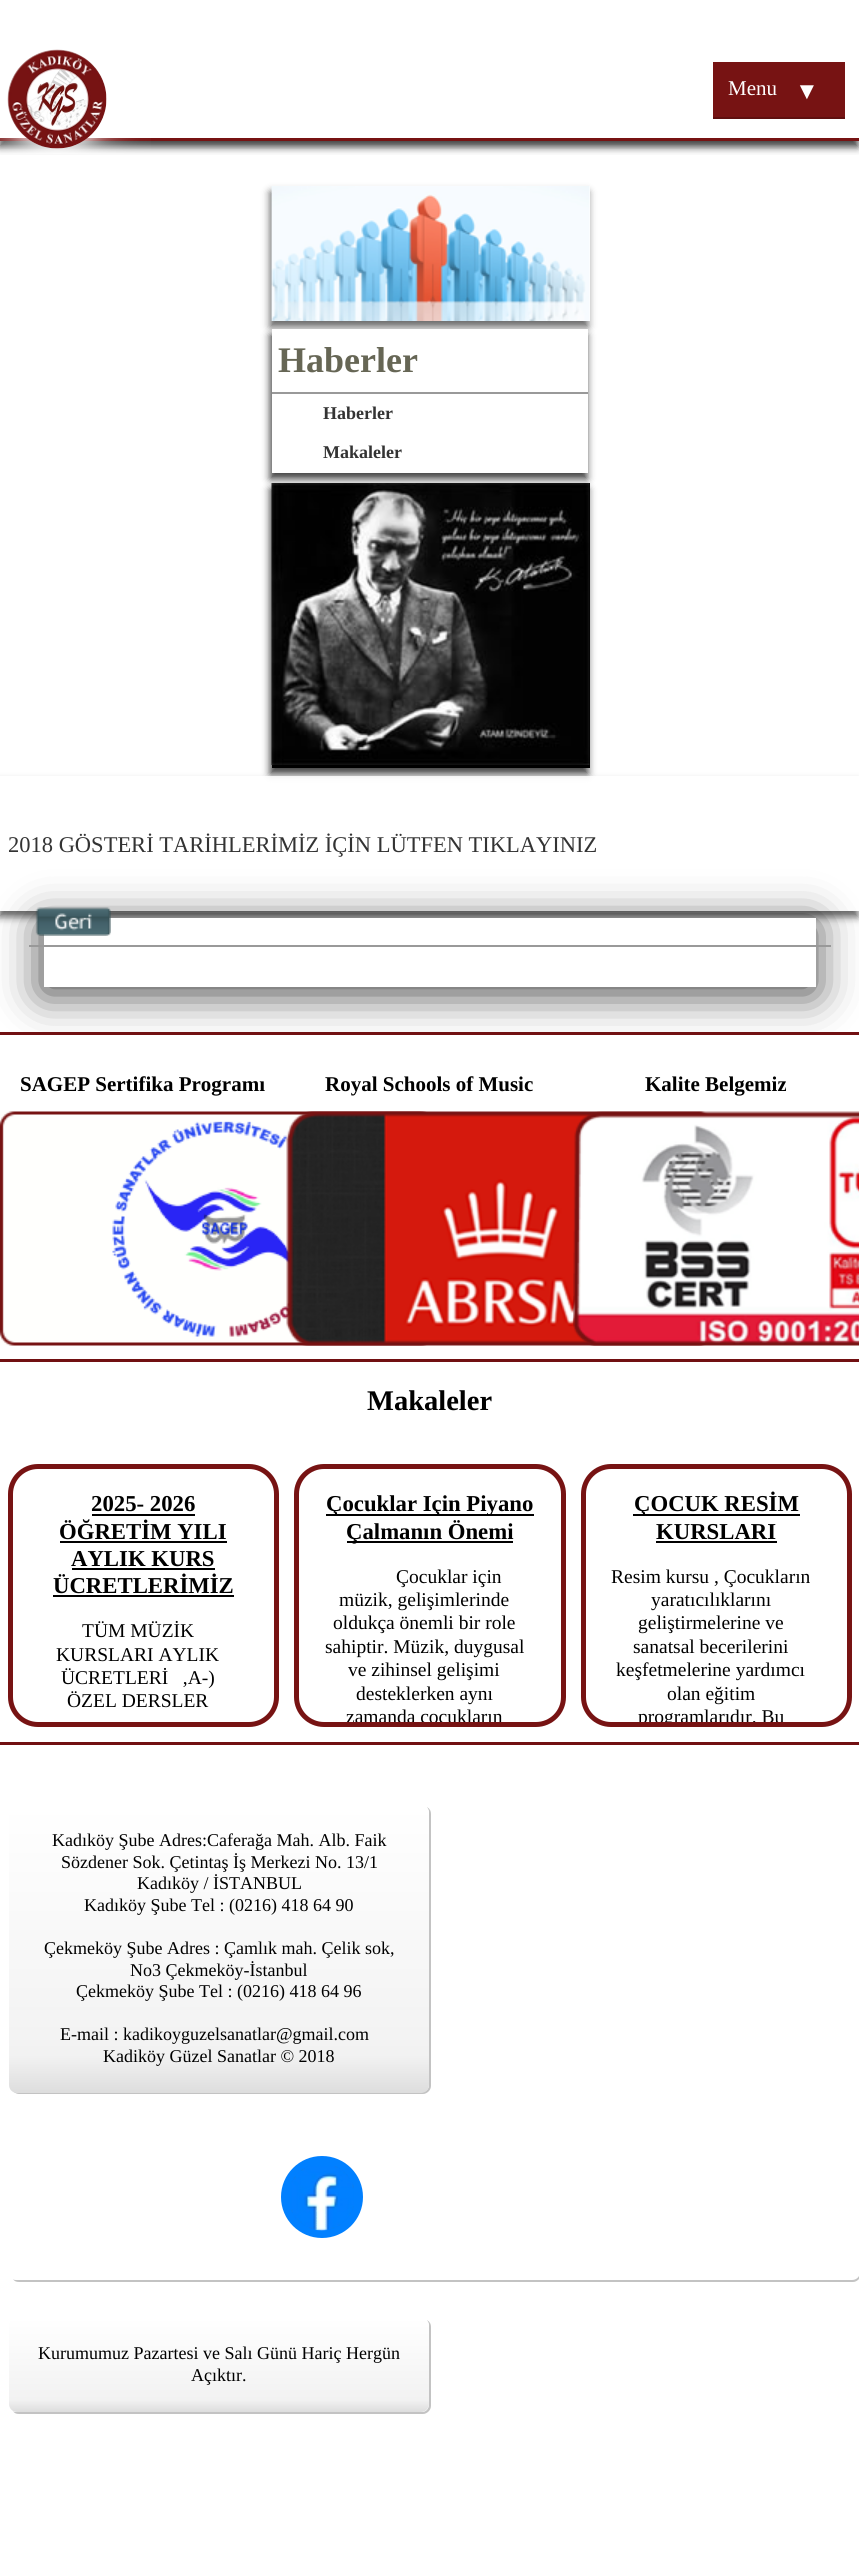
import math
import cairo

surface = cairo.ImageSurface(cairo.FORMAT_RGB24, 859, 2557)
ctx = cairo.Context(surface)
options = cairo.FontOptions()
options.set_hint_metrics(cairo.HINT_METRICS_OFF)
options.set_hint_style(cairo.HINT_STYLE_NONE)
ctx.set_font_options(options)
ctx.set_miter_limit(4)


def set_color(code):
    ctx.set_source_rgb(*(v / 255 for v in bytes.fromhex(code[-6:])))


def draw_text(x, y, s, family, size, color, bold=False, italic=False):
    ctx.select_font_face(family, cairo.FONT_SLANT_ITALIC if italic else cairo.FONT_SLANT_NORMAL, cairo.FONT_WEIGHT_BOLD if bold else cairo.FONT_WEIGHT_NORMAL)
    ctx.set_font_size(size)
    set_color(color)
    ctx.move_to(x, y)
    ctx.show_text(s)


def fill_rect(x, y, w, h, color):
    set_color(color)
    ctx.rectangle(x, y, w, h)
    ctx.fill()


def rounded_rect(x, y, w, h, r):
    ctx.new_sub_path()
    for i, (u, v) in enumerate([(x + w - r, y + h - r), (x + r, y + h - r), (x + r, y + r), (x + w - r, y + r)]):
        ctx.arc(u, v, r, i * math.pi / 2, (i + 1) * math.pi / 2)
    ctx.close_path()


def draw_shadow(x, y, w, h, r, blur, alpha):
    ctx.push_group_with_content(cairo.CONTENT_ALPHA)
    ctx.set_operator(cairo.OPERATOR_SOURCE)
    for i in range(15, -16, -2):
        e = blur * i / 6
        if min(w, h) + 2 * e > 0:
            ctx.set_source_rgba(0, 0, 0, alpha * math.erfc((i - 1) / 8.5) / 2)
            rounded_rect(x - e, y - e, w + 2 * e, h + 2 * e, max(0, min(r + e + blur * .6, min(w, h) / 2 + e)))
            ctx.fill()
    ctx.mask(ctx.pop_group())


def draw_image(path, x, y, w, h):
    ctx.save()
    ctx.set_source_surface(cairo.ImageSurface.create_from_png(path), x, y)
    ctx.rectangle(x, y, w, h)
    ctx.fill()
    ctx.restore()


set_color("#ffffff")
ctx.paint()
ctx.save()
ctx.rectangle(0, 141, 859, 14)
ctx.clip()
set_color("#000000")
draw_shadow(-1, 6, 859, 141, 0, 4, 0.75)
ctx.restore()
fill_rect(0, 138, 859, 3, "#771313")
draw_image("assets/img1.png", 0, 49, 151, 105)
fill_rect(713, 62, 132, 55, "#771313")
fill_rect(713, 117, 132, 2, "#5f0f0f")
draw_text(728, 95, "Menu", "Liberation Serif", 21, "#ffffff")
draw_text(795, 99, "▼", "Liberation Serif", 24, "#ffffff", italic=True)
ctx.save()
ctx.set_fill_rule(cairo.FILL_RULE_EVEN_ODD)
ctx.new_path()
ctx.move_to(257, 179)
ctx.line_to(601, 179)
ctx.line_to(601, 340)
ctx.line_to(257, 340)
ctx.close_path()
ctx.move_to(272, 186)
ctx.line_to(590, 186)
ctx.line_to(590, 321)
ctx.line_to(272, 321)
ctx.close_path()
ctx.clip()
set_color("#333333")
draw_shadow(270, 192, 318, 135, 0, 4, 0.75)
ctx.restore()
draw_image("assets/img2.png", 271, 186, 319, 135)
set_color("#000000")
draw_shadow(270, 335, 317, 144, 0, 4, 0.75)
fill_rect(272, 329, 316, 144, "#ffffff")
fill_rect(272, 392, 316, 2, "#999999")
draw_text(278, 372, "Haberler", "Liberation Serif", 36, "#666655", bold=True)
draw_text(323, 419, "Haberler", "Liberation Serif", 18, "#333333", bold=True)
draw_text(323, 458, "Makaleler", "Liberation Serif", 18, "#333333", bold=True)
set_color("#000000")
draw_shadow(270, 489, 318, 285, 0, 4, 0.75)
fill_rect(272, 483, 318, 285, "#000000")
draw_image("assets/img3.png", 271, 483, 319, 282)
ctx.save()
ctx.set_fill_rule(cairo.FILL_RULE_EVEN_ODD)
ctx.new_path()
ctx.move_to(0, 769)
ctx.line_to(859, 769)
ctx.line_to(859, 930)
ctx.line_to(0, 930)
ctx.close_path()
ctx.move_to(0, 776)
ctx.line_to(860, 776)
ctx.line_to(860, 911)
ctx.line_to(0, 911)
ctx.close_path()
ctx.clip()
set_color("#000000")
draw_shadow(-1, 782, 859, 135, 0, 4, 0.6)
ctx.restore()
ctx.set_source_rgba(1, 1, 1, 0.8)
ctx.rectangle(0, 776, 859, 135)
ctx.fill()
draw_text(8, 852, "2018 GÖSTERİ TARİHLERİMİZ İÇİN LÜTFEN TIKLAYINIZ", "Liberation Serif", 22.5, "#333333")
ctx.save()
ctx.rectangle(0, 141, 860, 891)
ctx.clip()
set_color("#000000")
draw_shadow(42, 924, 773, 69, 0, 22, 0.75)
ctx.restore()
fill_rect(44, 918, 772, 69, "#ffffff")
fill_rect(29, 945, 802, 2, "#999999")
draw_image("assets/img4.png", 35, 907, 76, 29)
fill_rect(0, 1032, 859, 3, "#711012")
draw_text(20, 1091, "SAGEP Sertifika Programı", "Liberation Serif", 21, "#000000", bold=True)
draw_image("assets/img5.png", 0, 1111, 435, 235)
draw_text(325, 1091, "Royal Schools of Music", "Liberation Serif", 21, "#000000", bold=True)
draw_image("assets/img6.png", 286, 1111, 424, 235)
draw_text(645, 1091, "Kalite Belgemiz", "Liberation Serif", 21, "#000000", bold=True)
draw_image("assets/img7.png", 573, 1111, 286, 235)
fill_rect(0, 1359, 859, 3, "#711012")
draw_text(367, 1410, "Makaleler", "Liberation Serif", 28.5, "#000000", bold=True)
rounded_rect(10.5, 1466.5, 266, 258, 27.5)
set_color("#771313")
ctx.set_line_width(5)
ctx.stroke()
draw_text(91, 1511, "2025- 2026", "Liberation Serif", 22.75, "#000000", bold=True)
fill_rect(92, 1514, 103, 2, "#000000")
draw_text(59, 1539, "ÖĞRETİM YILI", "Liberation Serif", 22.75, "#000000", bold=True)
fill_rect(60, 1541, 167, 2, "#000000")
draw_text(71, 1566, "AYLIK KURS", "Liberation Serif", 22.75, "#000000", bold=True)
fill_rect(72, 1568, 143, 2, "#000000")
draw_text(53, 1593, "ÜCRETLERİMİZ", "Liberation Serif", 22.75, "#000000", bold=True)
fill_rect(53, 1595, 181, 2, "#000000")
draw_text(82, 1637, "TÜM MÜZİK", "Liberation Serif", 19.5, "#000000")
draw_text(56, 1661, "KURSLARI AYLIK", "Liberation Serif", 19.5, "#000000")
draw_text(61, 1684, "ÜCRETLERİ   ,A-)", "Liberation Serif", 19.5, "#000000")
draw_text(67, 1707, "ÖZEL DERSLER", "Liberation Serif", 19.5, "#000000")
rounded_rect(296.5, 1466.5, 267, 258, 27.5)
set_color("#771313")
ctx.stroke()
fill_rect(326, 1514, 208, 2, "#000000")
draw_text(326, 1511, "Çocuklar Için Piyano", "Liberation Serif", 22.75, "#000000", bold=True)
fill_rect(347, 1541, 166, 2, "#000000")
draw_text(346, 1539, "Çalmanın Önemi", "Liberation Serif", 22.75, "#000000", bold=True)
draw_text(396, 1583, "Çocuklar için", "Liberation Serif", 19.5, "#000000")
draw_text(339, 1606, "müzik, gelişimlerinde", "Liberation Serif", 19.5, "#000000")
draw_text(333, 1629, "oldukça önemli bir role", "Liberation Serif", 19.5, "#000000")
draw_text(325, 1653, "sahiptir. Müzik, duygusal", "Liberation Serif", 19.5, "#000000")
draw_text(348, 1676, "ve zihinsel gelişimi", "Liberation Serif", 19.5, "#000000")
draw_text(356, 1700, "desteklerken aynı", "Liberation Serif", 19.5, "#000000")
ctx.save()
rounded_rect(299, 1469, 262, 253, 26)
ctx.clip()
draw_text(346, 1723, "zamanda çocukların", "Liberation Serif", 19.5, "#000000")
ctx.restore()
rounded_rect(583.5, 1466.5, 266, 258, 27.5)
set_color("#771313")
ctx.stroke()
fill_rect(633, 1514, 167, 2, "#000000")
draw_text(634, 1511, "ÇOCUK RESİM", "Liberation Serif", 22.75, "#000000", bold=True)
draw_text(656, 1539, "KURSLARI", "Liberation Serif", 22.75, "#000000", bold=True)
fill_rect(656, 1541, 121, 2, "#000000")
draw_text(611, 1583, "Resim kursu , Çocukların", "Liberation Serif", 19.5, "#000000")
draw_text(651, 1606, "yaratıcılıklarını", "Liberation Serif", 19.5, "#000000")
draw_text(638, 1629, "geliştirmelerine ve", "Liberation Serif", 19.5, "#000000")
draw_text(633, 1653, "sanatsal becerilerini", "Liberation Serif", 19.5, "#000000")
draw_text(616, 1676, "keşfetmelerine yardımcı", "Liberation Serif", 19.5, "#000000")
draw_text(667, 1700, "olan eğitim", "Liberation Serif", 19.5, "#000000")
ctx.save()
rounded_rect(585, 1469, 263, 253, 26)
ctx.clip()
draw_text(638, 1723, "programlarıdır. Bu", "Liberation Serif", 19.5, "#000000")
ctx.restore()
fill_rect(0, 1742, 859, 3, "#711012")
set_color("#c3c3c3")
ctx.new_path()
ctx.move_to(14, 2092)
ctx.curve_to(15, 2093, 17, 2094, 19, 2094)
ctx.line_to(423, 2094)
ctx.curve_to(427, 2094, 431, 2090, 431, 2086)
ctx.line_to(431, 1814)
ctx.curve_to(431, 1811, 430, 1809, 427, 1807)
ctx.curve_to(428, 1809, 429, 1810, 429, 1812)
ctx.line_to(429, 2085)
ctx.curve_to(429, 2089, 426, 2092, 422, 2092)
ctx.line_to(16, 2092)
ctx.close_path()
ctx.fill()
gradient = cairo.LinearGradient(219, 1805, 219, 2093)
gradient.add_color_stop_rgba(0, 1, 1, 1, 1)
gradient.add_color_stop_rgba(0.87, 0.949, 0.949, 0.949, 1)
gradient.add_color_stop_rgba(1, 0.867, 0.867, 0.867, 1)
ctx.set_source(gradient)
rounded_rect(9, 1805, 420, 288, 8)
ctx.fill()
draw_text(52, 1846, "Kadıköy Şube Adres:Caferağa Mah. Alb. Faik", "Liberation Serif", 18, "#000000")
draw_text(61, 1868, "Sözdener Sok. Çetintaş İş Merkezi No. 13/1", "Liberation Serif", 18, "#000000")
draw_text(137, 1889, "Kadıköy / İSTANBUL", "Liberation Serif", 18, "#000000")
draw_text(84, 1911, "Kadıköy Şube Tel : (0216) 418 64 90", "Liberation Serif", 18, "#000000")
draw_text(44, 1954, "Çekmeköy Şube Adres : Çamlık mah. Çelik sok,", "Liberation Serif", 18, "#000000")
draw_text(130, 1976, "No3 Çekmeköy-İstanbul", "Liberation Serif", 18, "#000000")
draw_text(76, 1997, "Çekmeköy Şube Tel : (0216) 418 64 96", "Liberation Serif", 18, "#000000")
draw_text(60, 2040, "E-mail : kadikoyguzelsanatlar@gmail.com", "Liberation Serif", 18, "#000000")
draw_text(103, 2062, "Kadiköy Güzel Sanatlar © 2018", "Liberation Serif", 18, "#000000")
set_color("#c3c3c3")
ctx.new_path()
ctx.move_to(13, 2279)
ctx.curve_to(14, 2281, 16, 2282, 19, 2282)
ctx.line_to(853, 2282)
ctx.curve_to(857, 2282, 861, 2278, 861, 2274)
ctx.line_to(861, 2140)
ctx.curve_to(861, 2138, 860, 2136, 859, 2135)
ctx.line_to(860, 2138)
ctx.line_to(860, 2272)
ctx.curve_to(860, 2277, 856, 2280, 852, 2280)
ctx.line_to(16, 2280)
ctx.curve_to(15, 2280, 14, 2280, 13, 2279)
ctx.close_path()
ctx.fill()
set_color("#0180ff")
ctx.arc(322, 2197, 41, 0, 2 * math.pi)
ctx.fill()
draw_image("assets/img8.png", 291, 2166, 63, 65)
set_color("#c3c3c3")
ctx.new_path()
ctx.move_to(13, 2411)
ctx.curve_to(14, 2413, 16, 2414, 19, 2414)
ctx.line_to(423, 2414)
ctx.curve_to(427, 2414, 431, 2410, 431, 2406)
ctx.line_to(431, 2327)
ctx.curve_to(431, 2324, 430, 2322, 427, 2320)
ctx.curve_to(428, 2322, 429, 2323, 429, 2325)
ctx.line_to(429, 2404)
ctx.curve_to(429, 2409, 426, 2412, 422, 2412)
ctx.line_to(16, 2412)
ctx.curve_to(15, 2412, 14, 2412, 13, 2411)
ctx.close_path()
ctx.fill()
gradient = cairo.LinearGradient(219, 2318, 219, 2412)
gradient.add_color_stop_rgba(0, 1, 1, 1, 1)
gradient.add_color_stop_rgba(0.87, 0.949, 0.949, 0.949, 1)
gradient.add_color_stop_rgba(1, 0.867, 0.867, 0.867, 1)
ctx.set_source(gradient)
rounded_rect(9, 2318, 420, 94, 8)
ctx.fill()
draw_text(38, 2359, "Kurumumuz Pazartesi ve Salı Günü Hariç Hergün", "Liberation Serif", 18, "#000000")
draw_text(191, 2381, "Açıktır.", "Liberation Serif", 18, "#000000")
surface.write_to_png("output.png")
